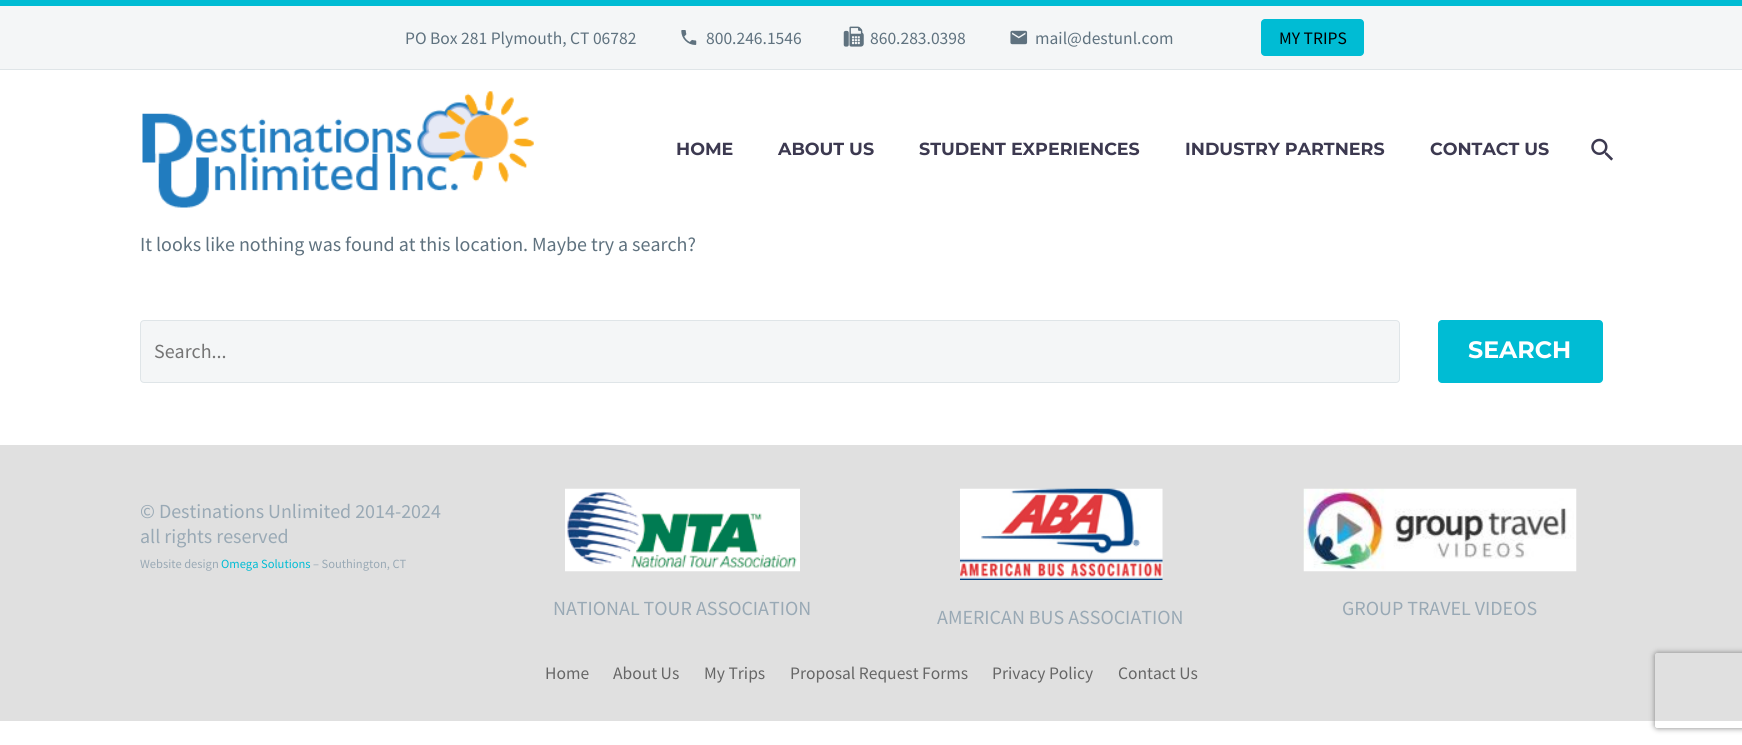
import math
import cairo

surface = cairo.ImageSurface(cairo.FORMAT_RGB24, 1742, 745)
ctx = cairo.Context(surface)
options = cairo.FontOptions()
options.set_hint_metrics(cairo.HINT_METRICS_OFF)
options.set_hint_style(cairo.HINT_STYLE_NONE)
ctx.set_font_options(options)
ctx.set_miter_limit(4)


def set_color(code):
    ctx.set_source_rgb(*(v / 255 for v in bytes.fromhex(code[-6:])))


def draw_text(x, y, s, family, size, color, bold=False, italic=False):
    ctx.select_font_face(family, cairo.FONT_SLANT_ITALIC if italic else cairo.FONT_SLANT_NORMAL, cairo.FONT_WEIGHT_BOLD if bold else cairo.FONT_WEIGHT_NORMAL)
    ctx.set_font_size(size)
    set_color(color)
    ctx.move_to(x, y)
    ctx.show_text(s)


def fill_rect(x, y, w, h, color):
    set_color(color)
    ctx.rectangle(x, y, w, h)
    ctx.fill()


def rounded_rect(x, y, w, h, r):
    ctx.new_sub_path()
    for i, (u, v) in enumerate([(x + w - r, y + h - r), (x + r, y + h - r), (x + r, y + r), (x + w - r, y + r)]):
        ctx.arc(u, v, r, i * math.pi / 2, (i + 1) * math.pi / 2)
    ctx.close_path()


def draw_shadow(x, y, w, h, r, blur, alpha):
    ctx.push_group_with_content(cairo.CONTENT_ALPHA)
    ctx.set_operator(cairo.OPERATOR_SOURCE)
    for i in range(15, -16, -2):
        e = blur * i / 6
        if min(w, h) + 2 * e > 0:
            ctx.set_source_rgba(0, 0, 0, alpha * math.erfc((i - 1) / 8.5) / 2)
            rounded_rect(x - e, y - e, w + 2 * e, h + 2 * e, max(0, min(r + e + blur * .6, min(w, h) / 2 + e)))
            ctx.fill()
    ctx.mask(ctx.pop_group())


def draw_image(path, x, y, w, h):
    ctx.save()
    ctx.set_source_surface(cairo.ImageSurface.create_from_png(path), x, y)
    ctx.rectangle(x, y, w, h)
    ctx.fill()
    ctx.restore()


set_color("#ffffff")
ctx.paint()
fill_rect(0, 6, 1742, 63, "#f4f6f7")
fill_rect(0, 0, 1742, 6, "#00bcd4")
fill_rect(0, 69, 1742, 1, "#dfe5e8")
draw_text(405, 44, "PO Box 281 Plymouth, CT 06782", "Source Sans Pro", 17.5, "#5f727f")
draw_image("assets/img1.png", 681, 30, 16, 15)
draw_text(706, 44, "800.246.1546", "Source Sans Pro", 17.5, "#5f727f")
draw_image("assets/img2.png", 843, 26, 21, 21)
draw_text(870, 44, "860.283.0398", "Source Sans Pro", 17.5, "#5f727f")
draw_image("assets/img3.png", 1010, 30, 18, 15)
draw_text(1035, 44, "mail@destunl.com", "Source Sans Pro", 17.5, "#5f727f")
set_color("#00bcd4")
rounded_rect(1261, 19, 103, 37, 4)
ctx.fill()
draw_text(1279, 44, "MY TRIPS", "Source Sans Pro", 17.5, "#000000")
draw_image("assets/img4.png", 142, 91, 392, 117)
draw_text(676, 155, "HOME", "Montserrat", 17.5, "#3c3950", bold=True)
draw_text(778, 155, "ABOUT US", "Montserrat", 17.5, "#3c3950", bold=True)
draw_text(919, 155, "STUDENT EXPERIENCES", "Montserrat", 17.5, "#3c3950", bold=True)
draw_text(1185, 155, "INDUSTRY PARTNERS", "Montserrat", 17.5, "#3c3950", bold=True)
draw_text(1430, 155, "CONTACT US", "Montserrat", 17.5, "#3c3950", bold=True)
draw_image("assets/img5.png", 1591, 138, 22, 23)
draw_text(140, 251, "It looks like nothing was found at this location. Maybe try a search?", "Source Sans Pro", 20, "#5f727f")
set_color("#f4f6f7")
rounded_rect(140.5, 320.5, 1259, 62, 3.5)
ctx.fill_preserve()
set_color("#dfe5e8")
ctx.set_line_width(1)
ctx.stroke()
draw_text(154, 358, "Search...", "Source Sans Pro", 20, "#757575")
set_color("#00bcd4")
rounded_rect(1438, 320, 165, 63, 4)
ctx.fill()
draw_text(1468, 358, "SEARCH", "Montserrat", 23.75, "#ffffff", bold=True)
fill_rect(0, 445, 1742, 276, "#e0e0e0")
draw_text(140, 518, "© Destinations Unlimited 2014-2024", "Source Sans Pro", 20, "#99a9b5")
draw_text(140, 543, "all rights reserved", "Source Sans Pro", 20, "#99a9b5")
draw_text(140, 568, "Website design", "Source Sans Pro", 12.5, "#99a9b5")
draw_text(221, 568, "Omega Solutions", "Source Sans Pro", 12.5, "#00bcd4")
draw_text(313, 568, "– Southington, CT", "Source Sans Pro", 12.5, "#99a9b5")
draw_image("assets/img6.png", 565, 488, 235, 84)
draw_text(553, 615, "NATIONAL TOUR ASSOCIATION", "Source Sans Pro", 20, "#99a9b5")
draw_image("assets/img7.png", 1303, 488, 274, 84)
draw_text(1342, 615, "GROUP TRAVEL VIDEOS", "Source Sans Pro", 20, "#99a9b5")
draw_image("assets/img8.png", 960, 488, 203, 92)
draw_text(937, 624, "AMERICAN BUS ASSOCIATION", "Source Sans Pro", 20, "#99a9b5")
draw_text(545, 679, "Home", "Source Sans Pro", 17.5, "#666666")
draw_text(613, 679, "About Us", "Source Sans Pro", 17.5, "#666666")
draw_text(704, 679, "My Trips", "Source Sans Pro", 17.5, "#666666")
draw_text(790, 679, "Proposal Request Forms", "Source Sans Pro", 17.5, "#666666")
draw_text(992, 679, "Privacy Policy", "Source Sans Pro", 17.5, "#666666")
draw_text(1118, 679, "Contact Us", "Source Sans Pro", 17.5, "#666666")
ctx.save()
ctx.set_fill_rule(cairo.FILL_RULE_EVEN_ODD)
ctx.new_path()
ctx.move_to(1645, 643)
ctx.line_to(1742, 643)
ctx.line_to(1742, 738)
ctx.line_to(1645, 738)
ctx.close_path()
ctx.move_to(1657.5, 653)
ctx.line_to(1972.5, 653)
ctx.curve_to(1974, 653, 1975, 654, 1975, 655.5)
ctx.line_to(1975, 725.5)
ctx.curve_to(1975, 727, 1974, 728, 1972.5, 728)
ctx.line_to(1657.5, 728)
ctx.curve_to(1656, 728, 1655, 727, 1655, 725.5)
ctx.line_to(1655, 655.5)
ctx.curve_to(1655, 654, 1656, 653, 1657.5, 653)
ctx.close_path()
ctx.clip()
set_color("#808080")
draw_shadow(1655, 653, 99, 75, 2.5, 3, 1)
ctx.restore()
surface.write_to_png("output.png")
